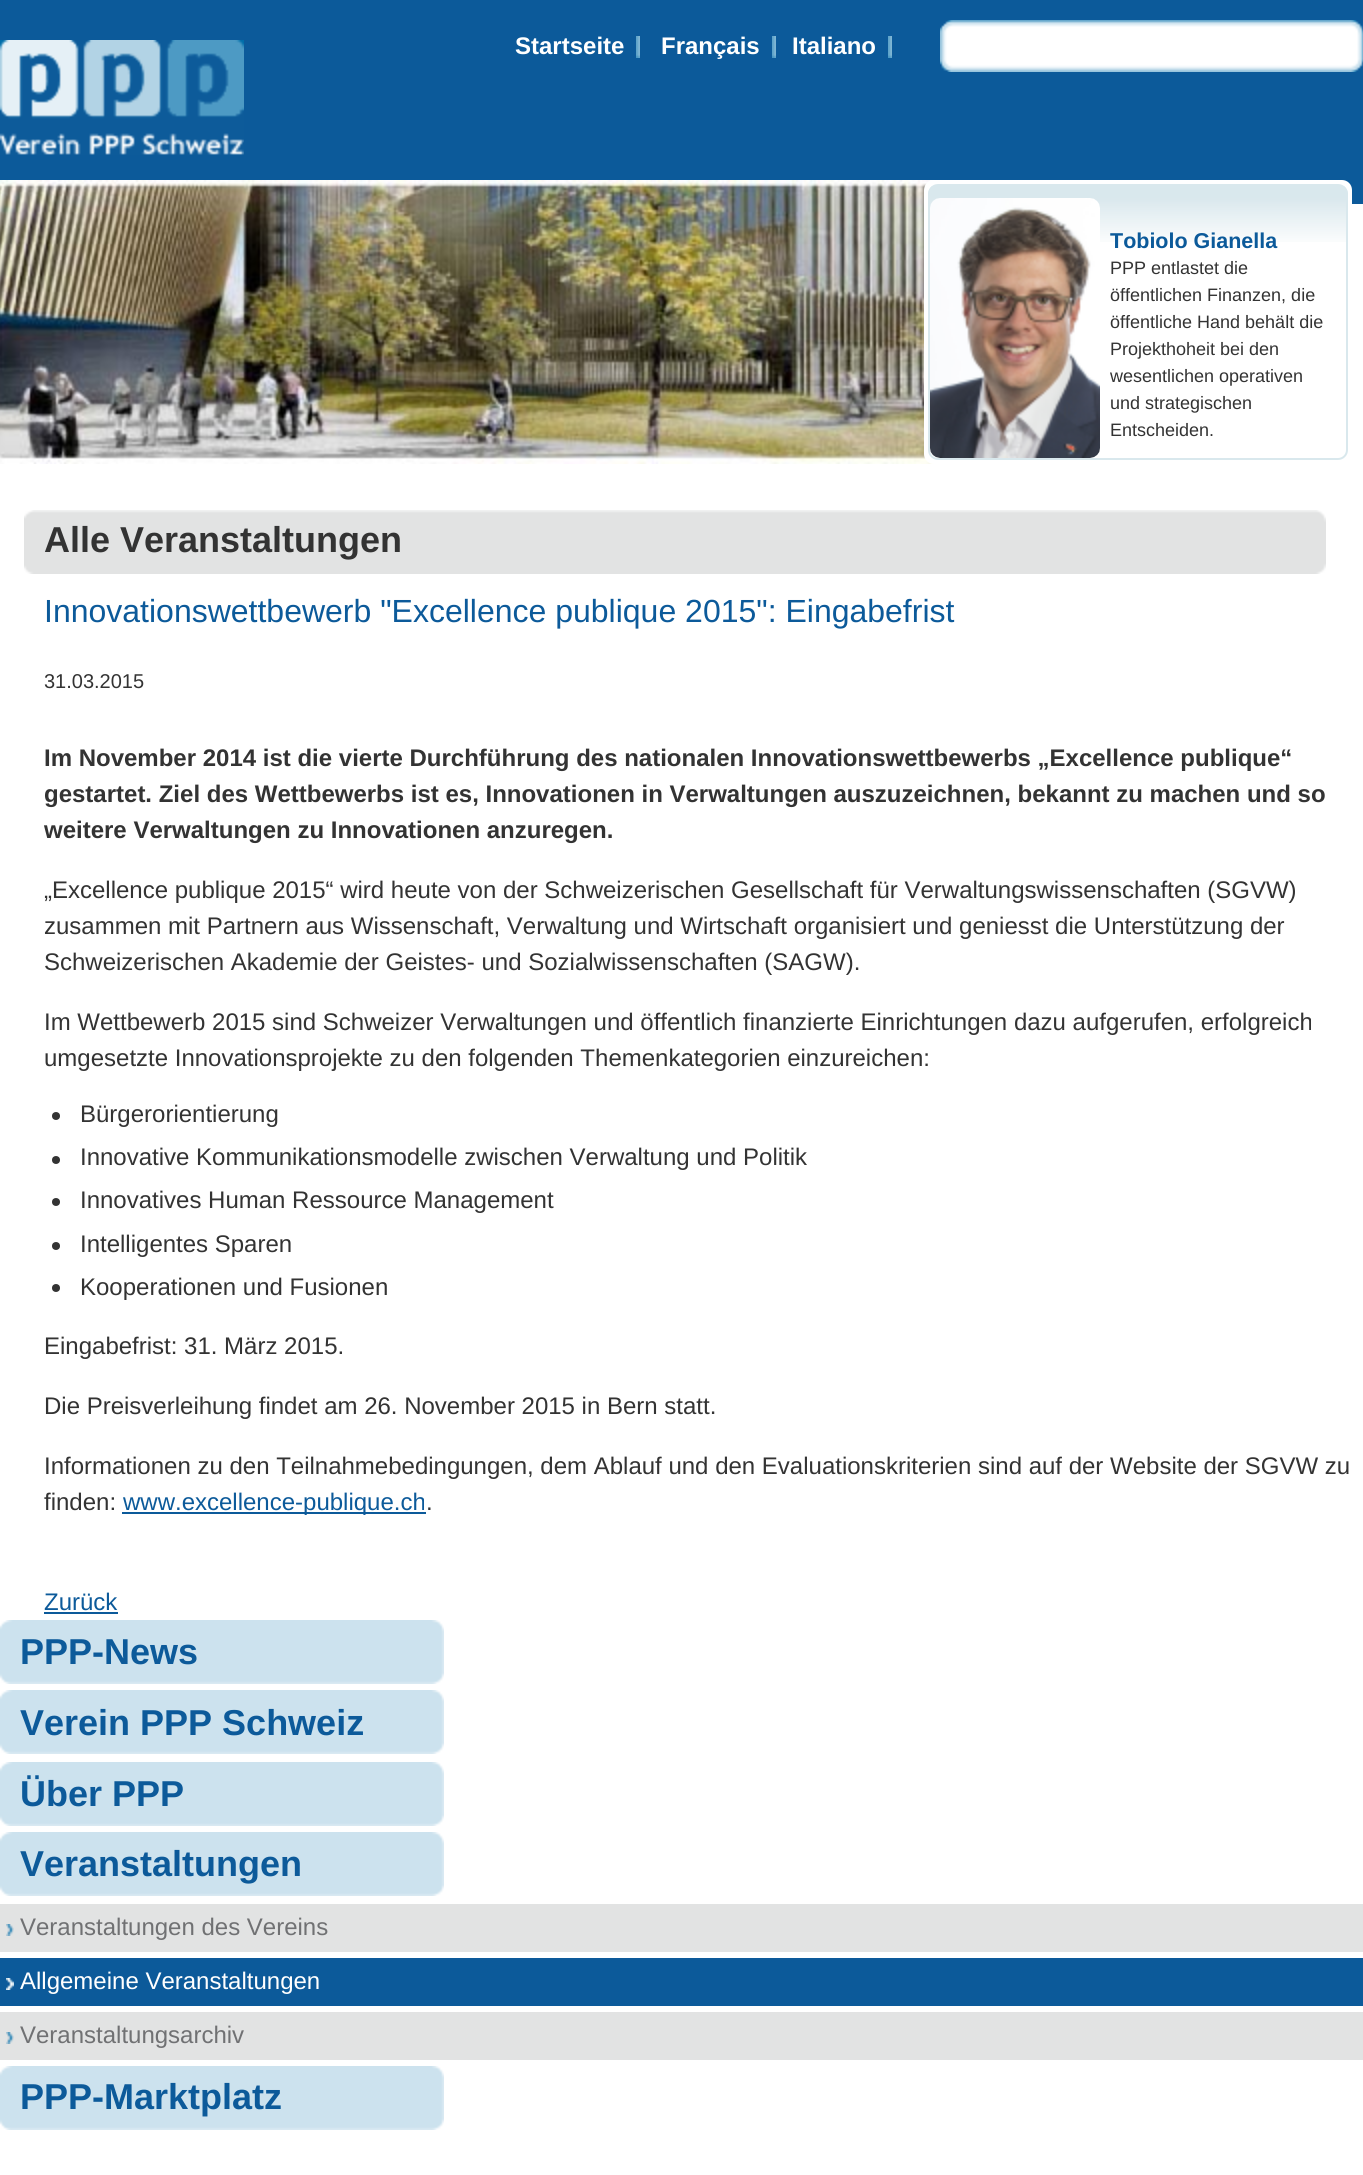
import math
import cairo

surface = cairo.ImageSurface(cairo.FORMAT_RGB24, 1363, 2175)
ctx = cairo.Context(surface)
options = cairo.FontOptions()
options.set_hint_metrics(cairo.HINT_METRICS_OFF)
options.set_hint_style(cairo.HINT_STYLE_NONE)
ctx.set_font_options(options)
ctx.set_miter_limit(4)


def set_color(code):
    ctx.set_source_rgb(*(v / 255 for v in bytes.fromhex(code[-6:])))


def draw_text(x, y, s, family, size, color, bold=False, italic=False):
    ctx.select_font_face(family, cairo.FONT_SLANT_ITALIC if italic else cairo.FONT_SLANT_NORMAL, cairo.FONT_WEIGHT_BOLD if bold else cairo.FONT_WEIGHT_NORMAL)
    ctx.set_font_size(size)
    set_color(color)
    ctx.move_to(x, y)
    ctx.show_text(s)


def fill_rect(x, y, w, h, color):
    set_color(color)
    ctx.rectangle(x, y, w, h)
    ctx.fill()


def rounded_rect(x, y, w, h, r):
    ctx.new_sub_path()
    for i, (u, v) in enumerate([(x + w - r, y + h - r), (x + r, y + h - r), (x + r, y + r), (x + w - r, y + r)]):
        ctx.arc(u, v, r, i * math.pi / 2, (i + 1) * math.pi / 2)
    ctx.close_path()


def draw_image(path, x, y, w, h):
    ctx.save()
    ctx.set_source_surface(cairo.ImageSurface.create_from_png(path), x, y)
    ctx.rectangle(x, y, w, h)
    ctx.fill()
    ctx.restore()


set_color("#ffffff")
ctx.paint()
fill_rect(0, 0, 1363, 204, "#0c5a9a")
draw_image("assets/img1.png", 0, 40, 244, 115)
draw_text(515, 54, "Startseite", "Liberation Sans", 24, "#ffffff", bold=True)
draw_image("assets/img2.png", 636, 36, 4, 22)
draw_text(661, 54, "Français", "Liberation Sans", 24, "#ffffff", bold=True)
draw_image("assets/img2.png", 772, 36, 4, 22)
draw_text(792, 54, "Italiano", "Liberation Sans", 24, "#ffffff", bold=True)
draw_image("assets/img2.png", 888, 36, 4, 22)
draw_image("assets/img3.png", 940, 20, 423, 52)
draw_image("assets/img4.png", 0, 180, 934, 284)
rounded_rect(926, 182, 424, 280, 8)
ctx.fill_preserve()
ctx.set_line_width(4)
ctx.stroke()
draw_image("assets/img5.png", 928, 186, 420, 56)
rounded_rect(929, 185, 418, 274, 9)
set_color("#d9e8ed")
ctx.set_line_width(2)
ctx.stroke()
draw_image("assets/img6.png", 930, 198, 170, 260)
draw_text(1110, 248, "Tobiolo Gianella", "Liberation Sans", 21.5, "#0c5a9a", bold=True)
draw_text(1110, 274, "PPP entlastet die", "Liberation Sans", 18, "#333333")
draw_text(1110, 301, "öffentlichen Finanzen, die", "Liberation Sans", 18, "#333333")
draw_text(1110, 328, "öffentliche Hand behält die", "Liberation Sans", 18, "#333333")
draw_text(1110, 355, "Projekthoheit bei den", "Liberation Sans", 18, "#333333")
draw_text(1110, 382, "wesentlichen operativen", "Liberation Sans", 18, "#333333")
draw_text(1110, 409, "und strategischen", "Liberation Sans", 18, "#333333")
draw_text(1110, 436, "Entscheiden.", "Liberation Sans", 18, "#333333")
draw_image("assets/img7.png", 24, 510, 1302, 64)
draw_text(44, 552, "Alle Veranstaltungen", "Liberation Sans", 36, "#333333", bold=True)
draw_text(44, 622, "Innovationswettbewerb \"Excellence publique 2015\": Eingabefrist", "Liberation Sans", 32, "#0c5a9a")
draw_text(44, 688, "31.03.2015", "Liberation Sans", 20, "#333333")
draw_text(44, 766, "Im November 2014 ist die vierte Durchführung des nationalen Innovationswettbewerbs „Excellence publique“", "Liberation Sans", 24, "#333333", bold=True)
draw_text(44, 802, "gestartet. Ziel des Wettbewerbs ist es, Innovationen in Verwaltungen auszuzeichnen, bekannt zu machen und so", "Liberation Sans", 24, "#333333", bold=True)
draw_text(44, 838, "weitere Verwaltungen zu Innovationen anzuregen.", "Liberation Sans", 24, "#333333", bold=True)
draw_text(44, 898, "„Excellence publique 2015“ wird heute von der Schweizerischen Gesellschaft für Verwaltungswissenschaften (SGVW)", "Liberation Sans", 24, "#333333")
draw_text(44, 934, "zusammen mit Partnern aus Wissenschaft, Verwaltung und Wirtschaft organisiert und geniesst die Unterstützung der", "Liberation Sans", 24, "#333333")
draw_text(44, 970, "Schweizerischen Akademie der Geistes- und Sozialwissenschaften (SAGW).", "Liberation Sans", 24, "#333333")
draw_text(44, 1030, "Im Wettbewerb 2015 sind Schweizer Verwaltungen und öffentlich finanzierte Einrichtungen dazu aufgerufen, erfolgreich", "Liberation Sans", 24, "#333333")
draw_text(44, 1066, "umgesetzte Innovationsprojekte zu den folgenden Themenkategorien einzureichen:", "Liberation Sans", 24, "#333333")
ctx.new_path()
ctx.arc(56, 1116, 4, 0, 2 * math.pi)
ctx.fill()
draw_text(80, 1122, "Bürgerorientierung", "Liberation Sans", 24, "#333333")
ctx.new_path()
ctx.arc(56, 1160, 4, 0, 2 * math.pi)
ctx.fill()
draw_text(80, 1165, "Innovative Kommunikationsmodelle zwischen Verwaltung und Politik", "Liberation Sans", 24, "#333333")
ctx.new_path()
ctx.arc(56, 1202, 4, 0, 2 * math.pi)
ctx.fill()
draw_text(80, 1208, "Innovatives Human Ressource Management", "Liberation Sans", 24, "#333333")
ctx.new_path()
ctx.arc(56, 1246, 4, 0, 2 * math.pi)
ctx.fill()
draw_text(80, 1252, "Intelligentes Sparen", "Liberation Sans", 24, "#333333")
ctx.new_path()
ctx.arc(56, 1288, 4, 0, 2 * math.pi)
ctx.fill()
draw_text(80, 1295, "Kooperationen und Fusionen", "Liberation Sans", 24, "#333333")
draw_text(44, 1354, "Eingabefrist: 31. März 2015.", "Liberation Sans", 24, "#333333")
draw_text(44, 1414, "Die Preisverleihung findet am 26. November 2015 in Bern statt.", "Liberation Sans", 24, "#333333")
draw_text(44, 1474, "Informationen zu den Teilnahmebedingungen, dem Ablauf und den Evaluationskriterien sind auf der Website der SGVW zu", "Liberation Sans", 24, "#333333")
draw_text(44, 1510, "finden:", "Liberation Sans", 24, "#333333")
fill_rect(122, 1512, 304, 2, "#0c5a9a")
draw_text(123, 1510, "www.excellence-publique.ch", "Liberation Sans", 24, "#0c5a9a")
draw_text(426, 1510, ".", "Liberation Sans", 24, "#333333")
draw_text(44, 1610, "Zurück", "Liberation Sans", 24, "#0c5a9a")
fill_rect(44, 1612, 74, 2, "#0c5a9a")
draw_image("assets/img8.png", 0, 1620, 444, 64)
draw_text(20, 1664, "PPP-News", "Liberation Sans", 36, "#0c5a9a", bold=True)
draw_image("assets/img8.png", 0, 1690, 444, 64)
draw_text(20, 1735, "Verein PPP Schweiz", "Liberation Sans", 36, "#0c5a9a", bold=True)
draw_image("assets/img8.png", 0, 1762, 444, 64)
draw_text(20, 1806, "Über PPP", "Liberation Sans", 36, "#0c5a9a", bold=True)
draw_image("assets/img8.png", 0, 1832, 444, 64)
draw_text(20, 1876, "Veranstaltungen", "Liberation Sans", 36, "#0c5a9a", bold=True)
fill_rect(0, 1904, 1363, 48, "#e2e3e3")
draw_image("assets/img9.png", 6, 1924, 8, 12)
draw_text(20, 1935, "Veranstaltungen des Vereins", "Liberation Sans", 24, "#707173")
fill_rect(0, 1958, 1363, 48, "#0c5a9a")
draw_image("assets/img10.png", 6, 1978, 8, 12)
draw_text(20, 1989, "Allgemeine Veranstaltungen", "Liberation Sans", 24, "#ffffff")
fill_rect(0, 2012, 1363, 48, "#e2e3e3")
draw_image("assets/img9.png", 6, 2032, 8, 12)
draw_text(20, 2043, "Veranstaltungsarchiv", "Liberation Sans", 24, "#707173")
draw_image("assets/img8.png", 0, 2066, 444, 64)
draw_text(20, 2109, "PPP-Marktplatz", "Liberation Sans", 36, "#0c5a9a", bold=True)
surface.write_to_png("output.png")
